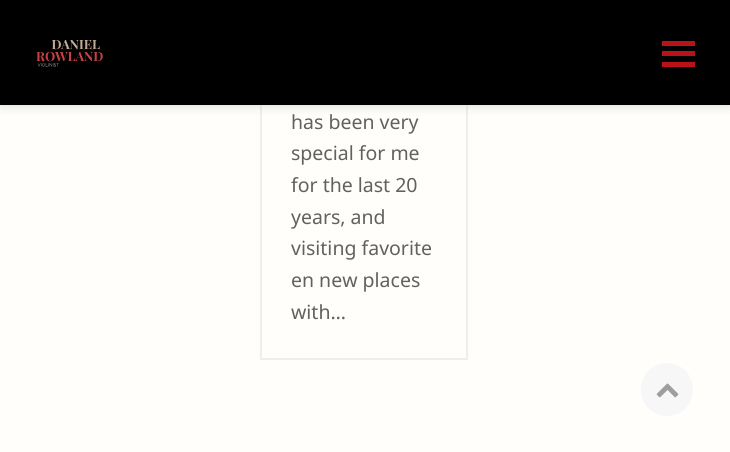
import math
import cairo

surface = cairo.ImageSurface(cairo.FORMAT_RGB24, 730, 452)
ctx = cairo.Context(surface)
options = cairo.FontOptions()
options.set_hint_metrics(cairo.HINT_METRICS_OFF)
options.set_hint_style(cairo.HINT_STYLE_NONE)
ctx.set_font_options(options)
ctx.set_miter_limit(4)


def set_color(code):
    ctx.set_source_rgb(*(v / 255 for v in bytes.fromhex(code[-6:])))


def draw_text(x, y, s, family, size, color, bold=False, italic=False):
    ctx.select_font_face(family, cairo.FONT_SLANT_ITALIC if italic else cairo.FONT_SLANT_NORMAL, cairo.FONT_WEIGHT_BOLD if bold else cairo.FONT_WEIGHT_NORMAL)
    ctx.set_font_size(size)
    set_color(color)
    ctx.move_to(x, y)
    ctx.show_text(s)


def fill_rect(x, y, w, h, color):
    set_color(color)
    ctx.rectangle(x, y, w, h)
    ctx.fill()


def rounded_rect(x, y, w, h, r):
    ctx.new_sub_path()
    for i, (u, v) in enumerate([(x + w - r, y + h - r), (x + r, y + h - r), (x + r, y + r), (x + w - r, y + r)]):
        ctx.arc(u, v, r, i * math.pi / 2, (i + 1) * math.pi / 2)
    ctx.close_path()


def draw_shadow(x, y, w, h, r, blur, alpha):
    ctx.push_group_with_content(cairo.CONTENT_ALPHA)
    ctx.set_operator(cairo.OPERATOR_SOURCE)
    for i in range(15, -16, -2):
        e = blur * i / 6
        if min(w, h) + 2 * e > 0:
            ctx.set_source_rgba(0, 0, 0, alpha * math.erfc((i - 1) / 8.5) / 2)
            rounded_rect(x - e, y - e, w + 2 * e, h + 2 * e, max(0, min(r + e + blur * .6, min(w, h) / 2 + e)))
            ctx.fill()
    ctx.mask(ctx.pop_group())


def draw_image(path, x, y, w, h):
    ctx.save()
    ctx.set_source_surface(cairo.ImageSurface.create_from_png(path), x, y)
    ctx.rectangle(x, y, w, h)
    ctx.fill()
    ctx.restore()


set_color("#fffefb")
ctx.paint()
ctx.rectangle(261, -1, 206, 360)
set_color("#eeeeee")
ctx.stroke()
set_color("#000000")
draw_shadow(0, 3, 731, 105, 0, 4, 0.1)
fill_rect(0, 0, 730, 105, "#000000")
draw_image("assets/img1.png", 36, 40, 67, 27)
fill_rect(662, 51, 33, 5, "#b91319")
fill_rect(662, 41, 33, 5, "#b91319")
fill_rect(662, 62, 33, 5, "#b91319")
draw_text(291, 129, "has been very", "Noto Sans", 19.5, "#616161")
draw_text(291, 160, "special for me", "Noto Sans", 19.5, "#616161")
draw_text(291, 192, "for the last 20", "Noto Sans", 19.5, "#616161")
draw_text(291, 224, "years, and", "Noto Sans", 19.5, "#616161")
draw_text(291, 255, "visiting favorite", "Noto Sans", 19.5, "#616161")
draw_text(291, 287, "en new places", "Noto Sans", 19.5, "#616161")
draw_text(291, 319, "with…", "Noto Sans", 19.5, "#616161")
set_color("#f7f7f7")
rounded_rect(641, 363, 52, 53, 26)
ctx.fill()
draw_image("assets/img2.png", 656, 383, 23, 15)
surface.write_to_png("output.png")
